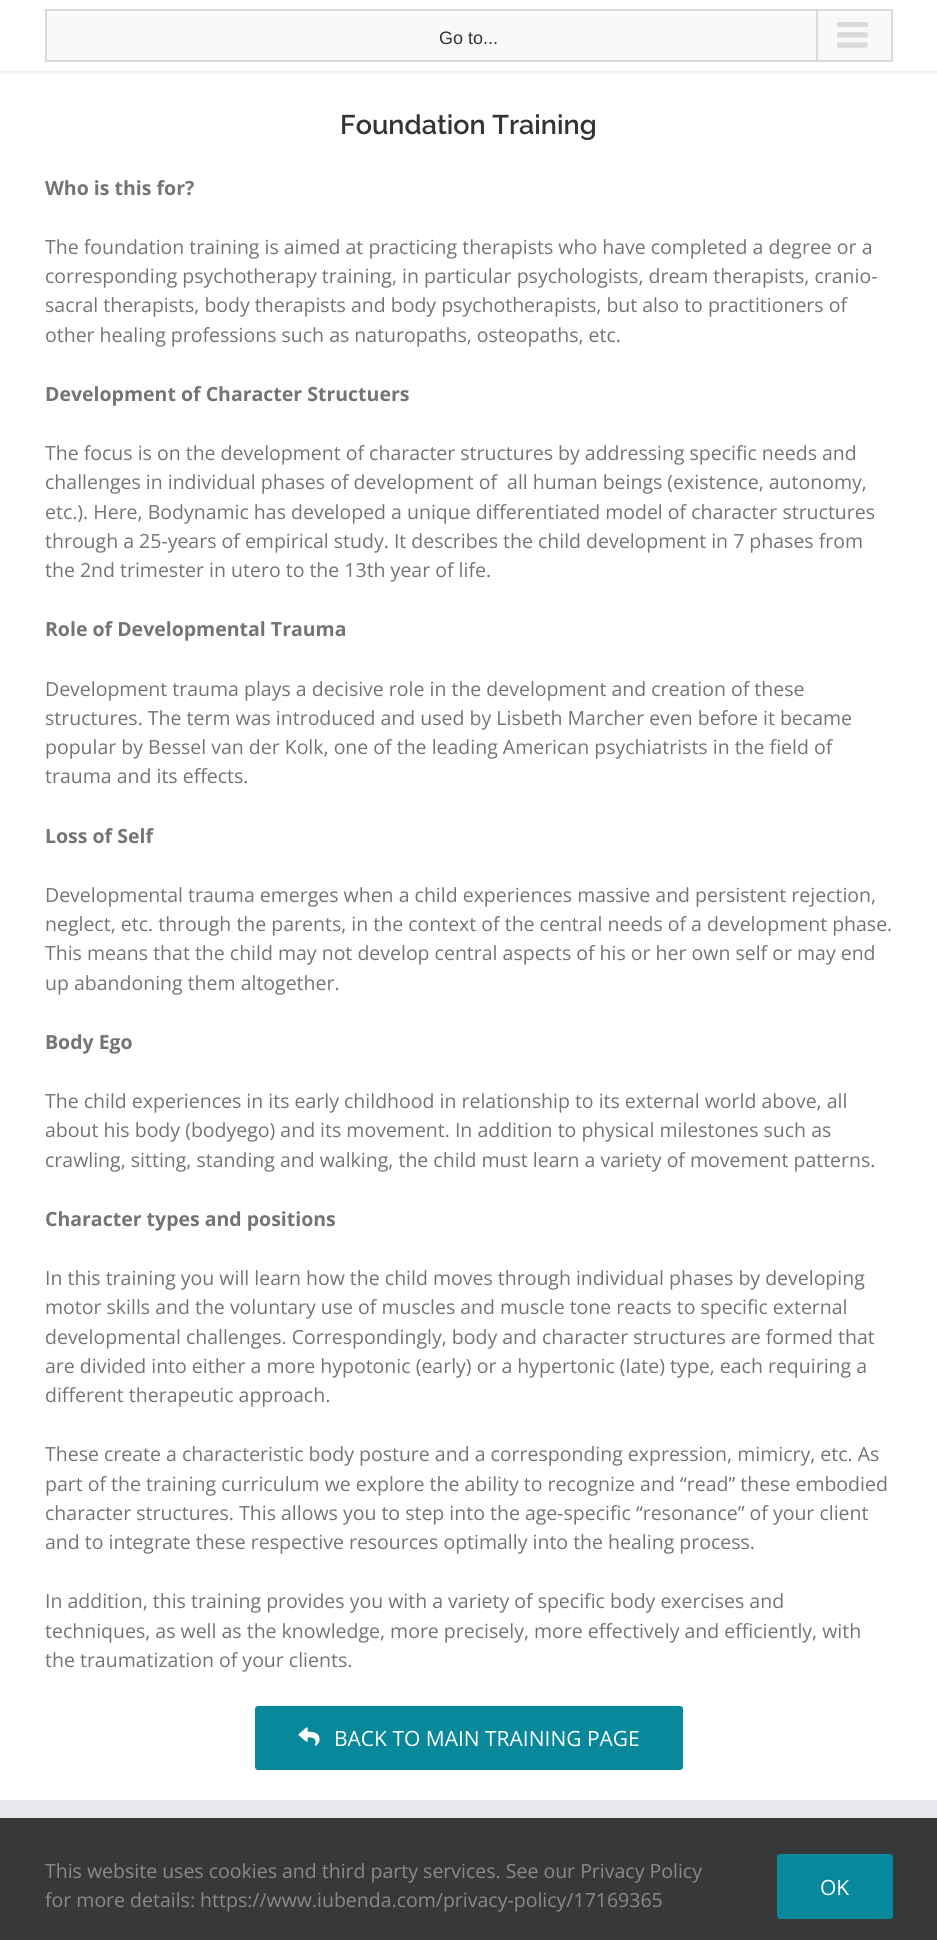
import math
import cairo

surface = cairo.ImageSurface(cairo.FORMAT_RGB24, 937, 1940)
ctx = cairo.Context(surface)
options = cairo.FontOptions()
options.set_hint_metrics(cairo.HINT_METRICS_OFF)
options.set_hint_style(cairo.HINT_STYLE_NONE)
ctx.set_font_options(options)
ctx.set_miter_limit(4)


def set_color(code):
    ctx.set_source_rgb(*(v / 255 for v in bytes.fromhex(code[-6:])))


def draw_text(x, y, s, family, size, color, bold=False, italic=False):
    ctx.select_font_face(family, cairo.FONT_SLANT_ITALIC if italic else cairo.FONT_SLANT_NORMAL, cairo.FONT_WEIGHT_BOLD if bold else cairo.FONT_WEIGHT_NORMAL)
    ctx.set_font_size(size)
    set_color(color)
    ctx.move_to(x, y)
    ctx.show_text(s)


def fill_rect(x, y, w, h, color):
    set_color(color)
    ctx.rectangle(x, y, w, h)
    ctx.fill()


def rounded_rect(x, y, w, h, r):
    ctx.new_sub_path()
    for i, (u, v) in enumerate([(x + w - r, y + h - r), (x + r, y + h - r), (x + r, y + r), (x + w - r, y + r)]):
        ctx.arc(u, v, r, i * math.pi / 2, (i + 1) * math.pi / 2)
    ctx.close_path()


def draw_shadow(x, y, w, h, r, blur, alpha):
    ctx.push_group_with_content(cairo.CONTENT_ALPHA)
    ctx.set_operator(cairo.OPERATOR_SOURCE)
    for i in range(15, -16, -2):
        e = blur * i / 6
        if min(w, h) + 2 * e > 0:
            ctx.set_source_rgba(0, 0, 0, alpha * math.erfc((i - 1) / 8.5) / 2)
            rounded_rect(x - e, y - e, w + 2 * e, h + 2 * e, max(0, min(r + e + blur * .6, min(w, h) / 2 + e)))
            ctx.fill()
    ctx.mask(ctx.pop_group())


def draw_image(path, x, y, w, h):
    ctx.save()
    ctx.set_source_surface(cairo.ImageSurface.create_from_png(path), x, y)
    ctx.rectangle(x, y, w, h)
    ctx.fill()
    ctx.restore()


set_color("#ffffff")
ctx.paint()
set_color("#000000")
draw_shadow(0, 2, 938, 70, 0, 2, 0.12)
fill_rect(0, 0, 937, 71, "#ffffff")
set_color("#f9f9f9")
ctx.rectangle(46, 10, 846, 51)
ctx.fill_preserve()
set_color("#dadada")
ctx.stroke()
draw_text(439, 44, "Go to...", "Liberation Sans", 18, "#333333")
fill_rect(816, 11, 2, 49, "#dadada")
draw_image("assets/img1.png", 837, 22, 31, 26)
draw_text(340, 134, "Foundation Training", "Raleway SemiBold", 27, "#333333")
draw_text(45, 195, "Who is this for?", "Open Sans", 19.5, "#747474", bold=True)
draw_text(45, 254, "The foundation training is aimed at practicing therapists who have completed a degree or a", "Open Sans", 19.5, "#747474")
draw_text(45, 283, "corresponding psychotherapy training, in particular psychologists, dream therapists, cranio-", "Open Sans", 19.5, "#747474")
draw_text(45, 312, "sacral therapists, body therapists and body psychotherapists, but also to practitioners of", "Open Sans", 19.5, "#747474")
draw_text(45, 342, "other healing professions such as naturopaths, osteopaths, etc.", "Open Sans", 19.5, "#747474")
draw_text(45, 401, "Development of Character Structuers", "Open Sans", 19.5, "#747474", bold=True)
draw_text(45, 460, "The focus is on the development of character structures by addressing specific needs and", "Open Sans", 19.5, "#747474")
draw_text(45, 489, "challenges in individual phases of development of  all human beings (existence, autonomy,", "Open Sans", 19.5, "#747474")
draw_text(45, 519, "etc.). Here, Bodynamic has developed a unique differentiated model of character structures", "Open Sans", 19.5, "#747474")
draw_text(45, 548, "through a 25-years of empirical study. It describes the child development in 7 phases from", "Open Sans", 19.5, "#747474")
draw_text(45, 577, "the 2nd trimester in utero to the 13th year of life.", "Open Sans", 19.5, "#747474")
draw_text(45, 636, "Role of Developmental Trauma", "Open Sans", 19.5, "#747474", bold=True)
draw_text(45, 696, "Development trauma plays a decisive role in the development and creation of these", "Open Sans", 19.5, "#747474")
draw_text(45, 725, "structures. The term was introduced and used by Lisbeth Marcher even before it became", "Open Sans", 19.5, "#747474")
draw_text(45, 754, "popular by Bessel van der Kolk, one of the leading American psychiatrists in the field of", "Open Sans", 19.5, "#747474")
draw_text(45, 783, "trauma and its effects.", "Open Sans", 19.5, "#747474")
draw_text(45, 843, "Loss of Self", "Open Sans", 19.5, "#747474", bold=True)
draw_text(45, 902, "Developmental trauma emerges when a child experiences massive and persistent rejection,", "Open Sans", 19.5, "#747474")
draw_text(45, 931, "neglect, etc. through the parents, in the context of the central needs of a development phase.", "Open Sans", 19.5, "#747474")
draw_text(45, 960, "This means that the child may not develop central aspects of his or her own self or may end", "Open Sans", 19.5, "#747474")
draw_text(45, 990, "up abandoning them altogether.", "Open Sans", 19.5, "#747474")
draw_text(45, 1049, "Body Ego", "Open Sans", 19.5, "#747474", bold=True)
draw_text(45, 1108, "The child experiences in its early childhood in relationship to its external world above, all", "Open Sans", 19.5, "#747474")
draw_text(45, 1137, "about his body (bodyego) and its movement. In addition to physical milestones such as", "Open Sans", 19.5, "#747474")
draw_text(45, 1167, "crawling, sitting, standing and walking, the child must learn a variety of movement patterns.", "Open Sans", 19.5, "#747474")
draw_text(45, 1226, "Character types and positions", "Open Sans", 19.5, "#747474", bold=True)
draw_text(45, 1285, "In this training you will learn how the child moves through individual phases by developing", "Open Sans", 19.5, "#747474")
draw_text(45, 1314, "motor skills and the voluntary use of muscles and muscle tone reacts to specific external", "Open Sans", 19.5, "#747474")
draw_text(45, 1344, "developmental challenges. Correspondingly, body and character structures are formed that", "Open Sans", 19.5, "#747474")
draw_text(45, 1373, "are divided into either a more hypotonic (early) or a hypertonic (late) type, each requiring a", "Open Sans", 19.5, "#747474")
draw_text(45, 1402, "different therapeutic approach.", "Open Sans", 19.5, "#747474")
draw_text(45, 1461, "These create a characteristic body posture and a corresponding expression, mimicry, etc. As", "Open Sans", 19.5, "#747474")
draw_text(45, 1491, "part of the training curriculum we explore the ability to recognize and “read” these embodied", "Open Sans", 19.5, "#747474")
draw_text(45, 1520, "character structures. This allows you to step into the age-specific “resonance” of your client", "Open Sans", 19.5, "#747474")
draw_text(45, 1549, "and to integrate these respective resources optimally into the healing process.", "Open Sans", 19.5, "#747474")
draw_text(45, 1608, "In addition, this training provides you with a variety of specific body exercises and", "Open Sans", 19.5, "#747474")
draw_text(45, 1638, "techniques, as well as the knowledge, more precisely, more effectively and efficiently, with", "Open Sans", 19.5, "#747474")
draw_text(45, 1667, "the traumatization of your clients.", "Open Sans", 19.5, "#747474")
set_color("#07889b")
rounded_rect(255, 1706, 428, 64, 3)
ctx.fill()
draw_image("assets/img2.png", 298, 1727, 22, 19)
draw_text(334, 1746, "BACK TO MAIN TRAINING PAGE", "Open Sans", 21, "#ffffff")
fill_rect(0, 1818, 937, 122, "#363839")
fill_rect(0, 1800, 937, 18, "#e9eaee")
draw_text(45, 1878, "This website uses cookies and third party services. See our Privacy Policy", "Open Sans", 19.5, "#8c8989")
draw_text(45, 1907, "for more details: https://www.iubenda.com/privacy-policy/17169365", "Open Sans", 19.5, "#8c8989")
set_color("#07889b")
rounded_rect(777, 1854, 116, 65, 3)
ctx.fill()
draw_text(820, 1895, "OK", "Open Sans", 21, "#ffffff")
surface.write_to_png("output.png")
